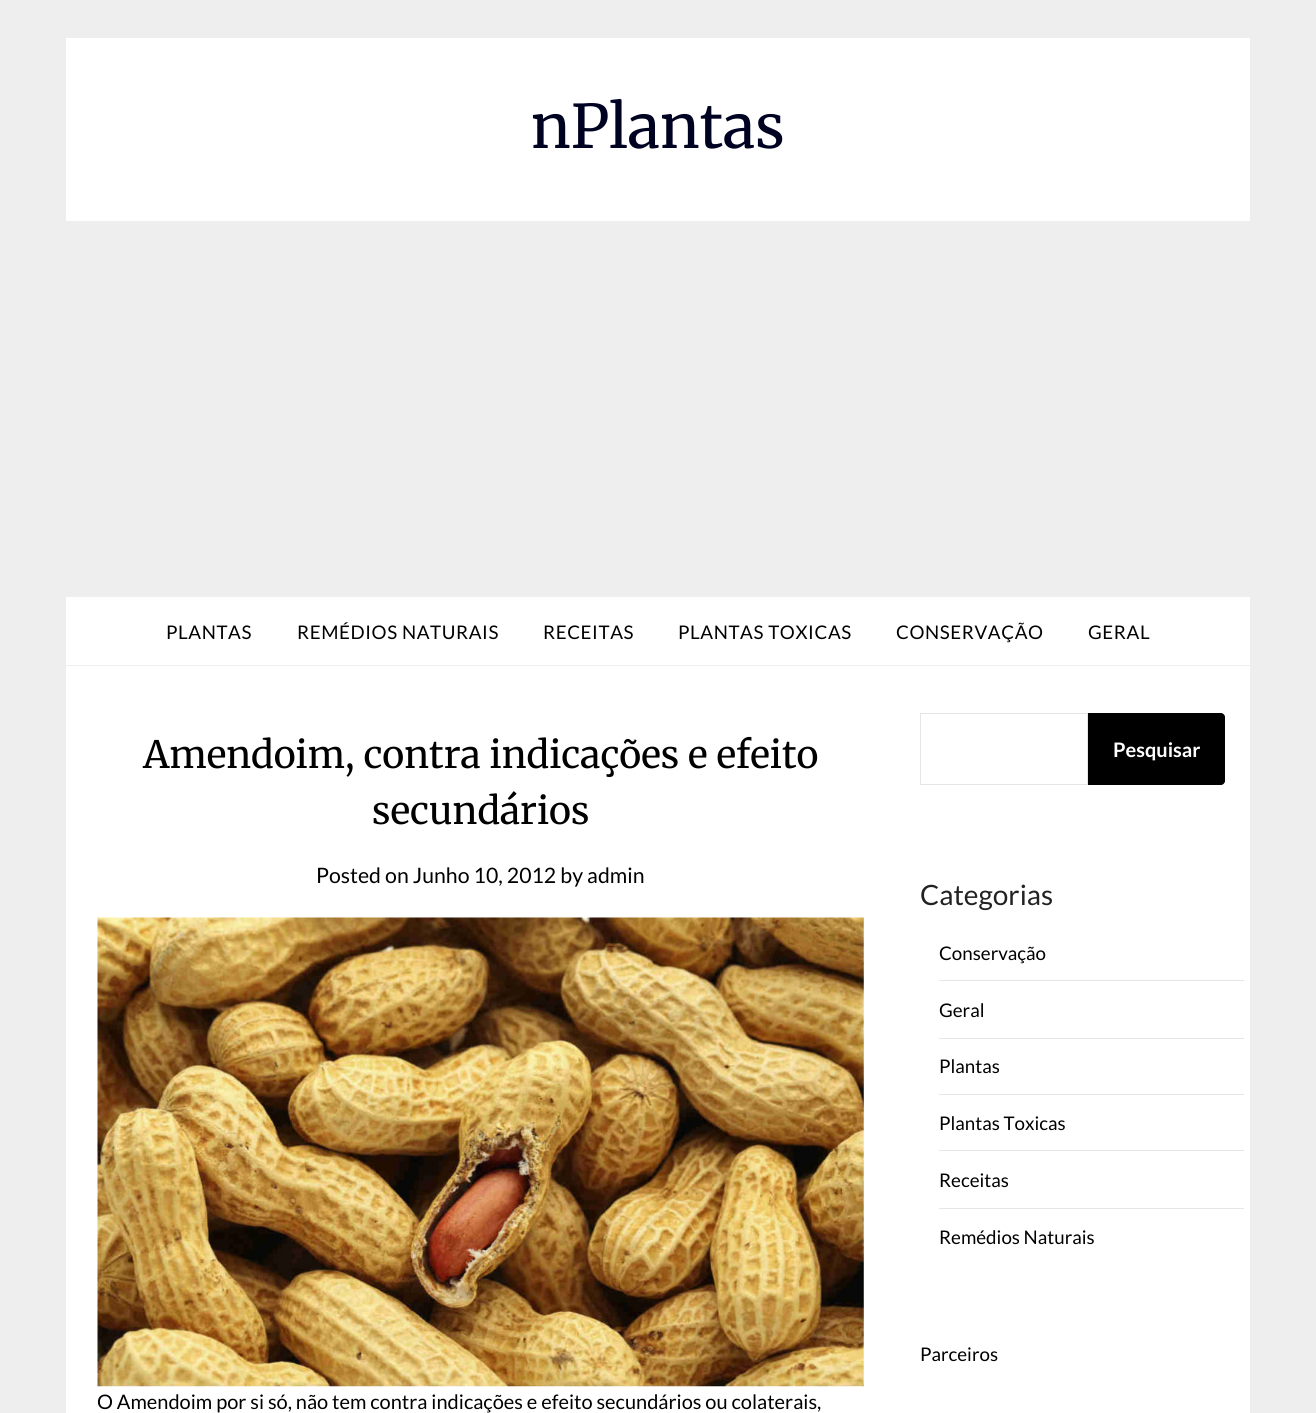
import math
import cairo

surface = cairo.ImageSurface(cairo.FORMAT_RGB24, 1316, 1413)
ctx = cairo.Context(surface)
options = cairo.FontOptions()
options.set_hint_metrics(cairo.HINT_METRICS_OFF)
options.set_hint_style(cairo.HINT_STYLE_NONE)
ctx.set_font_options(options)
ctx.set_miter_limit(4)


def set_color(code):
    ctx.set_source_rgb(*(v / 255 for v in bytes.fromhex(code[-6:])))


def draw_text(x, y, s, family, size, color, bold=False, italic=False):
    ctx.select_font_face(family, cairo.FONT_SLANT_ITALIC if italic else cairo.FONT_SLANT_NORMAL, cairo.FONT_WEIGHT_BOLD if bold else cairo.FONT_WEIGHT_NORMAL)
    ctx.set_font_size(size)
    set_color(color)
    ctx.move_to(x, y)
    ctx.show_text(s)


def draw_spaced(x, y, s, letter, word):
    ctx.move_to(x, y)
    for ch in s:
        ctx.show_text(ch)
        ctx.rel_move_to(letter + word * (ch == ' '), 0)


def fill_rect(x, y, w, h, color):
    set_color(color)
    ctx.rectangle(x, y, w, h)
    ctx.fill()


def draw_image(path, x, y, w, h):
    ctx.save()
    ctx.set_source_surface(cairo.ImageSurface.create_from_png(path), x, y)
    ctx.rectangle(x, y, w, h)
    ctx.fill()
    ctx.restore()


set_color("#eeeeee")
ctx.paint()
fill_rect(66, 38, 1184, 183, "#ffffff")
draw_text(531, 148, "nPlantas", "Merriweather", 60, "#000222")
fill_rect(66, 597, 1184, 68, "#ffffff")
ctx.select_font_face("Lato")
ctx.set_font_size(18.75)
set_color("#000000")
draw_spaced(166, 639, "PLANTAS", 0.6, 0)
draw_spaced(297, 639, "REMÉDIOS NATURAIS", 0.6, 0)
draw_spaced(543, 639, "RECEITAS", 0.6, 0)
draw_spaced(678, 639, "PLANTAS TOXICAS", 0.6, 0)
draw_spaced(896, 639, "CONSERVAÇÃO", 0.6, 0)
draw_spaced(1088, 639, "GERAL", 0.6, 0)
fill_rect(66, 666, 1184, 747, "#ffffff")
draw_text(143, 768, "Amendoim, contra indicações e efeito", "Merriweather", 37.5, "#000000")
draw_text(372, 824, "secundários", "Merriweather", 37.5, "#000000")
draw_text(316, 883, "Posted on Junho 10, 2012 by admin", "Lato", 21.25, "#000000")
draw_image("assets/img1.png", 97, 917, 767, 470)
draw_text(97, 1409, "O Amendoim por si só, não tem contra indicações e efeito secundários ou colaterais,", "Lato", 20, "#000000")
ctx.rectangle(920.5, 713.5, 167, 71)
set_color("#e5e6e9")
ctx.set_line_width(1)
ctx.stroke()
set_color("#000000")
ctx.new_path()
ctx.move_to(1088, 713)
ctx.line_to(1221, 713)
ctx.curve_to(1223, 713, 1225, 715, 1225, 717)
ctx.line_to(1225, 781)
ctx.curve_to(1225, 783, 1223, 785, 1221, 785)
ctx.line_to(1088, 785)
ctx.close_path()
ctx.fill()
draw_text(1113, 757, "Pesquisar", "Lato", 20, "#ffffff", bold=True)
draw_text(920, 905, "Categorias", "Lato", 28, "#222222")
fill_rect(939, 980, 305, 1, "#e6e6e6")
draw_text(939, 960, "Conservação", "Lato", 18.75, "#000000")
fill_rect(939, 1038, 305, 1, "#e6e6e6")
draw_text(939, 1017, "Geral", "Lato", 18.75, "#000000")
fill_rect(939, 1094, 305, 1, "#e6e6e6")
draw_text(939, 1073, "Plantas", "Lato", 18.75, "#000000")
fill_rect(939, 1150, 305, 1, "#e6e6e6")
draw_text(939, 1130, "Plantas Toxicas", "Lato", 18.75, "#000000")
fill_rect(939, 1208, 305, 1, "#e6e6e6")
draw_text(939, 1187, "Receitas", "Lato", 18.75, "#000000")
draw_text(939, 1244, "Remédios Naturais", "Lato", 18.75, "#000000")
draw_text(920, 1361, "Parceiros", "Lato", 18.75, "#000000")
surface.write_to_png("output.png")
